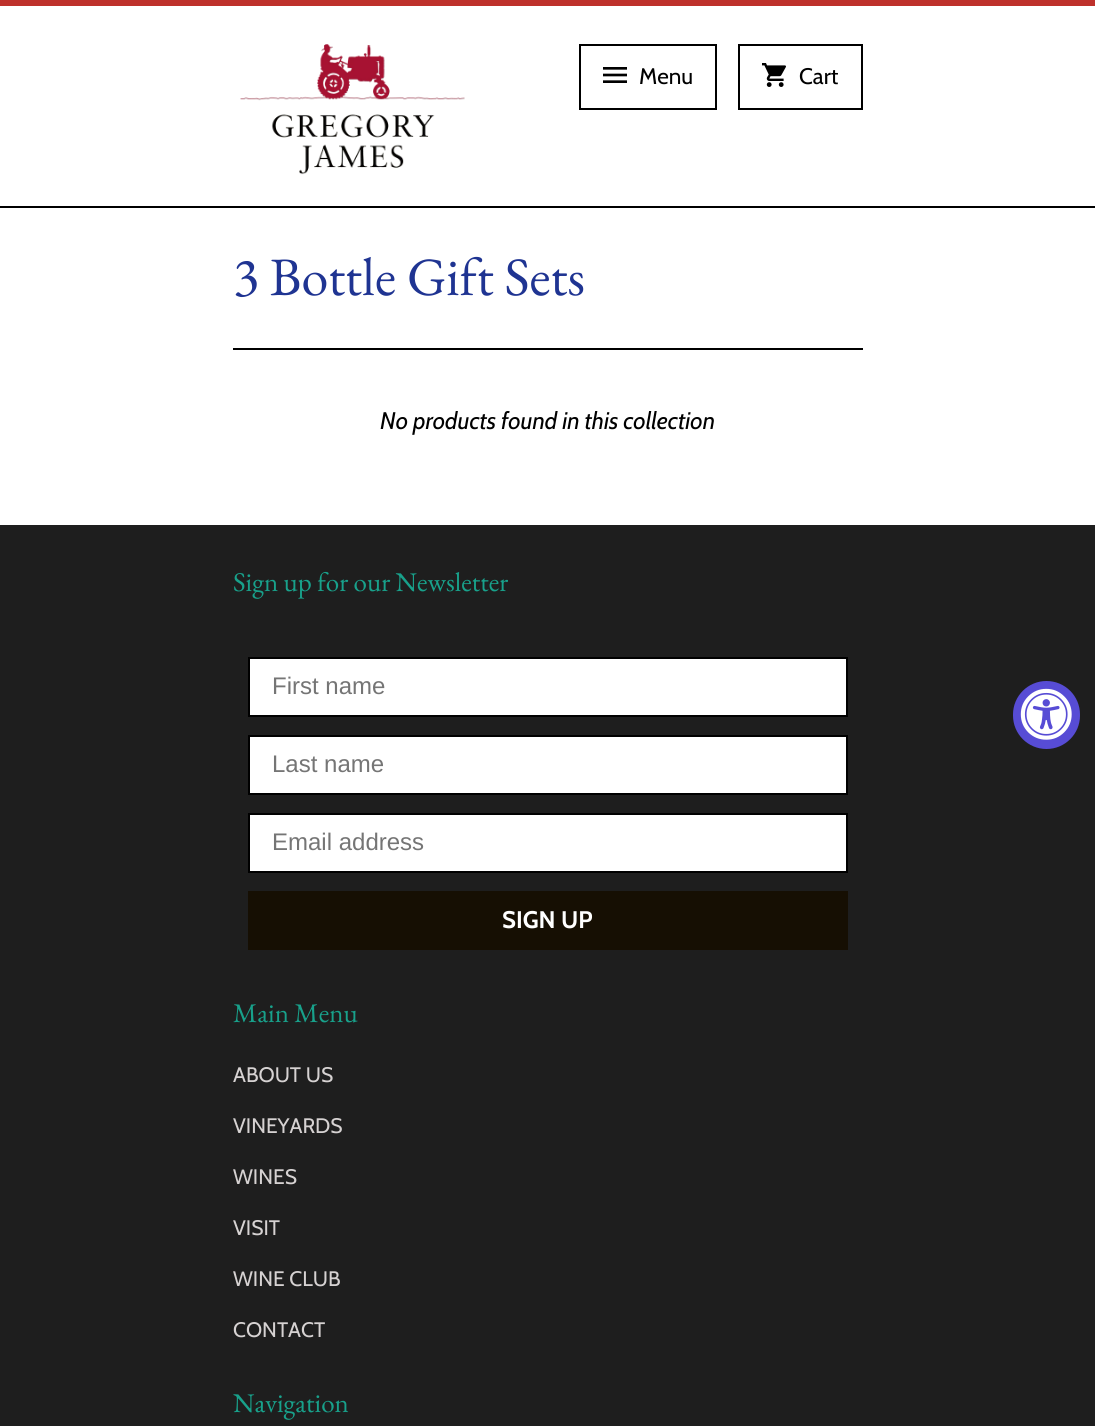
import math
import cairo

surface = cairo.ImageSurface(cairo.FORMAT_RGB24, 1095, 1426)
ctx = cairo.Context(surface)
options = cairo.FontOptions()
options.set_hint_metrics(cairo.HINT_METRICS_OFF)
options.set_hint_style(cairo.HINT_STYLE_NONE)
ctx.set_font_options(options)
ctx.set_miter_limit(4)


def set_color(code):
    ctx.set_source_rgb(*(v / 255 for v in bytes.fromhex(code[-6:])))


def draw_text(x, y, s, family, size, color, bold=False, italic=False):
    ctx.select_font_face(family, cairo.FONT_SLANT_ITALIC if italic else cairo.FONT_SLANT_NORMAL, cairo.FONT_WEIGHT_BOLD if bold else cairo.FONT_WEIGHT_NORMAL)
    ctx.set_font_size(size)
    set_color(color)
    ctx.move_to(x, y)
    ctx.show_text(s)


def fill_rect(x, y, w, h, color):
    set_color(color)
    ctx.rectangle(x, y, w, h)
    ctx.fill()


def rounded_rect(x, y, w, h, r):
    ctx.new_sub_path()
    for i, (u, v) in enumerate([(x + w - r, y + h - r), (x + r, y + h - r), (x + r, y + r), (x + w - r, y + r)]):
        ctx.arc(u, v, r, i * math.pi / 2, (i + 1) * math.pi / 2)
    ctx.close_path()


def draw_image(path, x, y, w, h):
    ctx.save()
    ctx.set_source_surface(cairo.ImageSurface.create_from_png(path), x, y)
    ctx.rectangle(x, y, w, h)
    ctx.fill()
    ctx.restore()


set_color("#ffffff")
ctx.paint()
fill_rect(0, 0, 1095, 6, "#be312b")
fill_rect(0, 206, 1095, 2, "#000000")
draw_image("assets/img1.png", 240, 44, 225, 131)
ctx.rectangle(580, 45, 136, 64)
ctx.stroke()
draw_image("assets/img2.png", 603, 67, 24, 16)
draw_text(639, 84, "Menu", "Cabin", 22.5, "#000000")
ctx.rectangle(739, 45, 123, 64)
ctx.stroke()
draw_image("assets/img3.png", 762, 63, 24, 24)
draw_text(799, 84, "Cart", "Cabin", 22.5, "#000000")
fill_rect(233, 348, 630, 2, "#000000")
draw_text(233, 295, "3 Bottle Gift Sets", "EB Garamond", 54, "#1f3492")
draw_text(380, 429, "No products found in this collection", "Cabin", 24, "#000000", italic=True)
fill_rect(0, 525, 1095, 901, "#1e1e1e")
draw_text(233, 591, "Sign up for our Newsletter", "EB Garamond", 27, "#18a18b")
set_color("#ffffff")
ctx.rectangle(249, 658, 598, 58)
ctx.fill_preserve()
set_color("#000000")
ctx.stroke()
draw_text(272, 694, "First name", "Liberation Sans", 24, "#757575")
set_color("#ffffff")
ctx.rectangle(249, 736, 598, 58)
ctx.fill_preserve()
set_color("#000000")
ctx.stroke()
draw_text(272, 772, "Last name", "Liberation Sans", 24, "#757575")
set_color("#ffffff")
ctx.rectangle(249, 814, 598, 58)
ctx.fill_preserve()
set_color("#000000")
ctx.stroke()
draw_text(272, 850, "Email address", "Liberation Sans", 24, "#757575")
fill_rect(248, 891, 600, 59, "#160f03")
draw_text(502, 928, "SIGN UP", "Cabin", 24, "#ffffff", bold=True)
draw_text(233, 1022, "Main Menu", "EB Garamond", 27, "#18a18b")
draw_text(233, 1082, "ABOUT US", "Cabin", 21, "#d6d2d2")
draw_text(233, 1133, "VINEYARDS", "Cabin", 21, "#d6d2d2")
draw_text(233, 1184, "WINES", "Cabin", 21, "#d6d2d2")
draw_text(233, 1235, "VISIT", "Cabin", 21, "#d6d2d2")
draw_text(233, 1286, "WINE CLUB", "Cabin", 21, "#d6d2d2")
draw_text(233, 1337, "CONTACT", "Cabin", 21, "#d6d2d2")
draw_text(233, 1412, "Navigation", "EB Garamond", 27, "#18a18b")
set_color("#574cd5")
rounded_rect(1013, 681, 67, 68, 33.5)
ctx.fill()
draw_image("assets/img4.png", 1020, 688, 52, 52)
surface.write_to_png("output.png")
